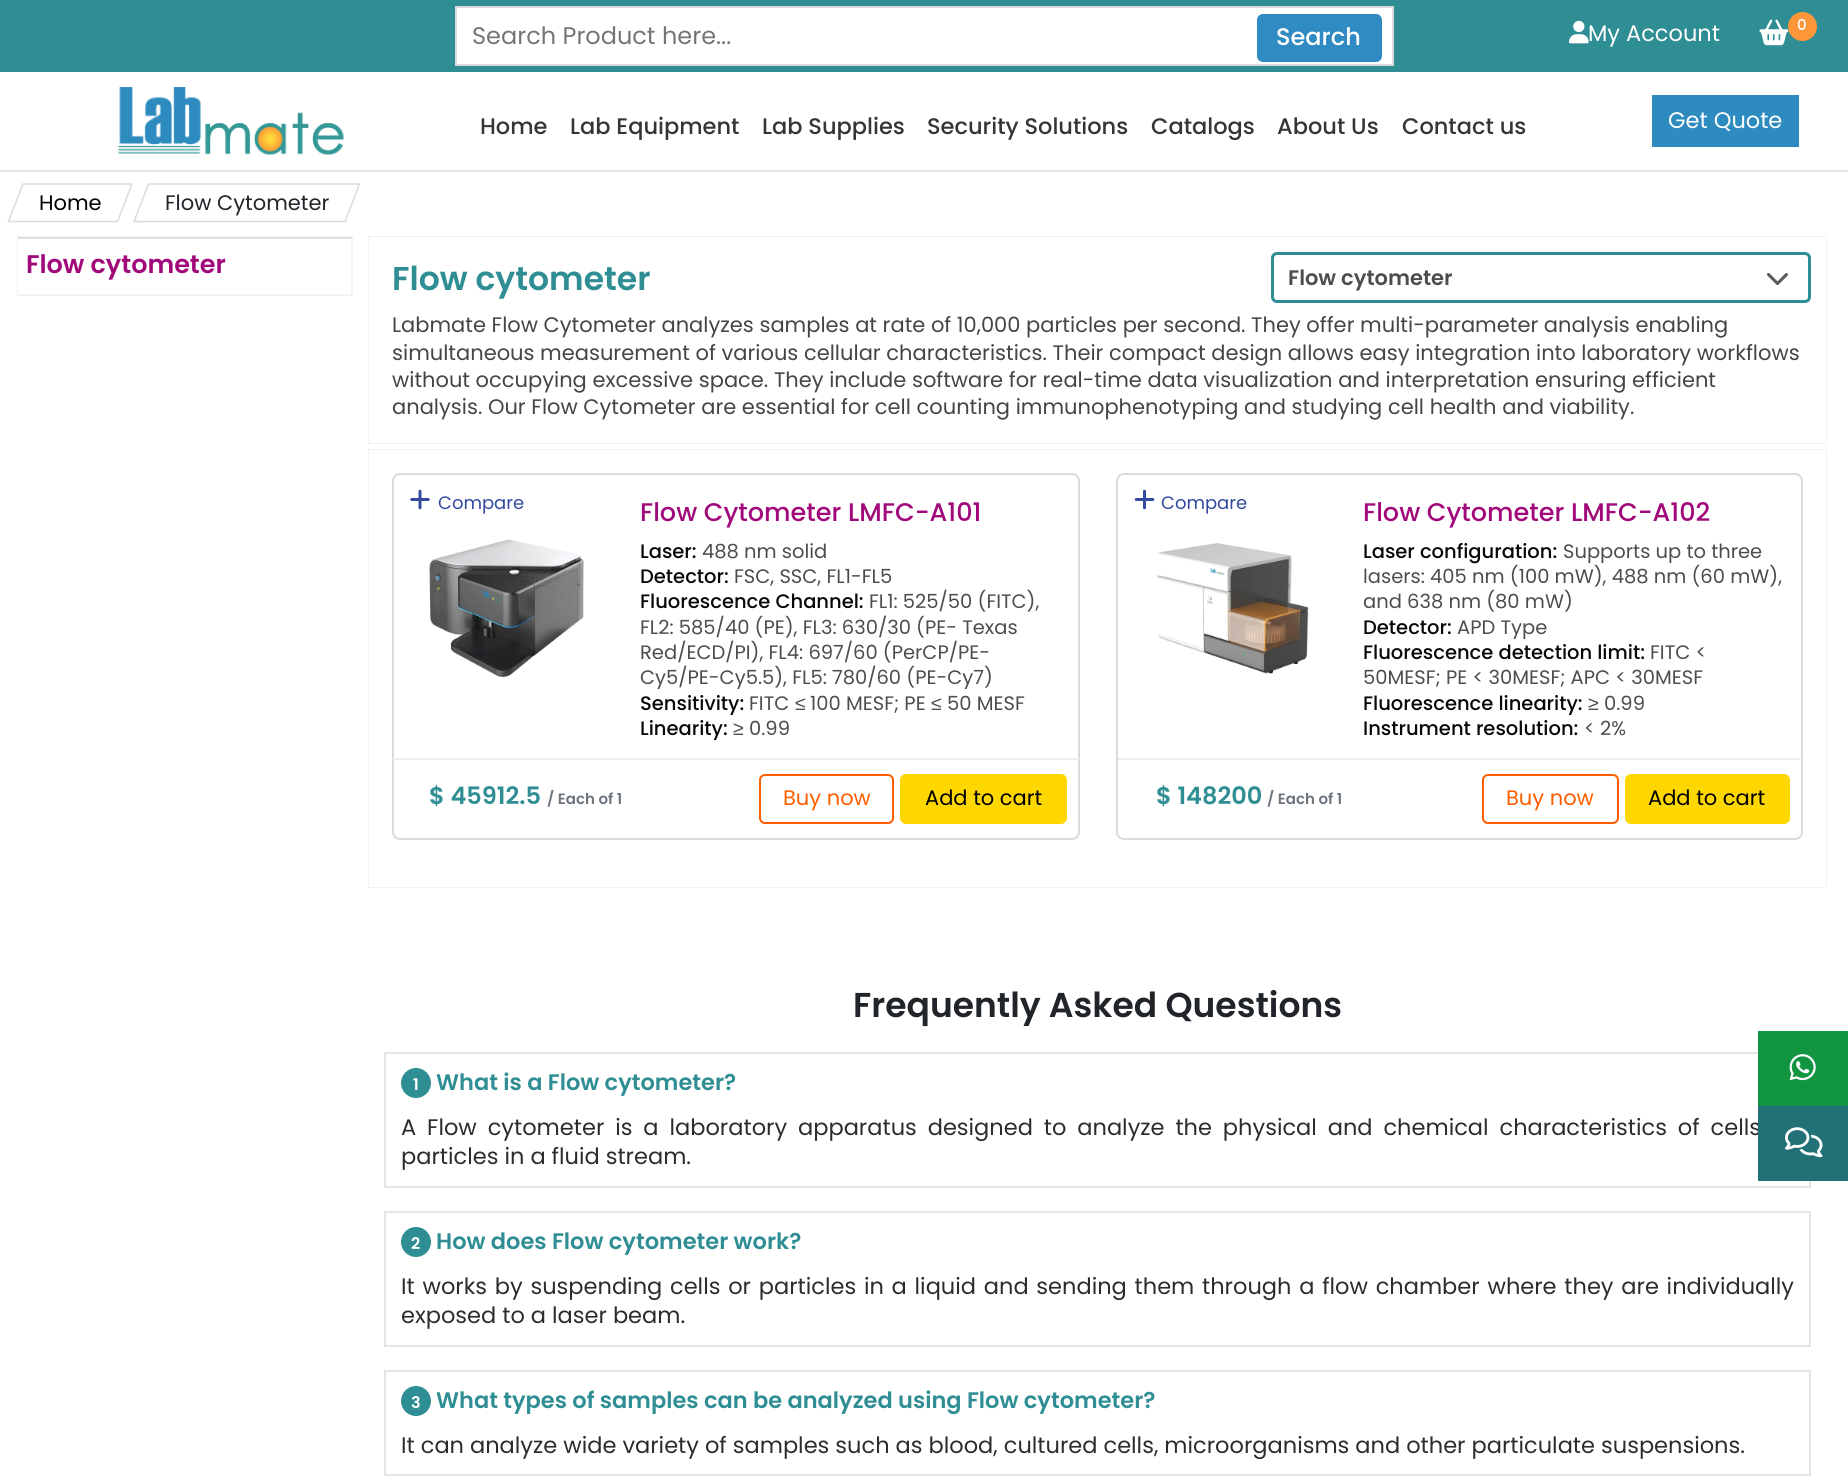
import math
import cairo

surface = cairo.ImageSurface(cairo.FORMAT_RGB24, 1848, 1480)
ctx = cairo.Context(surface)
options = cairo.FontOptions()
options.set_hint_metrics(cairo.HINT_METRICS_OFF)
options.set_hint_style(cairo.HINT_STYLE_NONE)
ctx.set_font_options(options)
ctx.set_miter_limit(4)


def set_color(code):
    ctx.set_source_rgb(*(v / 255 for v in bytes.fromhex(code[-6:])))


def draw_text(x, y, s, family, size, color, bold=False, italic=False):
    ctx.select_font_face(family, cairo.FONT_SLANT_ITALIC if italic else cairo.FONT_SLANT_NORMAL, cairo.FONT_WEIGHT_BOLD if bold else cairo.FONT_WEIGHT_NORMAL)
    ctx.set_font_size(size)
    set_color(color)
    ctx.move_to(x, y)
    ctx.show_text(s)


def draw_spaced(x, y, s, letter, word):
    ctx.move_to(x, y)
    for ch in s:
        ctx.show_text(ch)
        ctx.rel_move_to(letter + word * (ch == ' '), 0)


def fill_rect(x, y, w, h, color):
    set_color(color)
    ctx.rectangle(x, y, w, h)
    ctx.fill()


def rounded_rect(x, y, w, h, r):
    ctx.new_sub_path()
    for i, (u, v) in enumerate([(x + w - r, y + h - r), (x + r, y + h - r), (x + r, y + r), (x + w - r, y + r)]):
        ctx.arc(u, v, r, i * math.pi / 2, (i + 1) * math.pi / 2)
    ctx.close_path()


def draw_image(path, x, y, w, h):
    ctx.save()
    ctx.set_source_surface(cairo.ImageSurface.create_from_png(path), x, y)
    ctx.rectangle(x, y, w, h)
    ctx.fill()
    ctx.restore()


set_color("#ffffff")
ctx.paint()
fill_rect(0, 0, 1848, 72, "#2f8e94")
set_color("#ffffff")
ctx.rectangle(456, 7, 937, 58)
ctx.fill_preserve()
set_color("#dbdbdb")
ctx.stroke()
draw_text(472, 44, "Search Product here...", "Poppins", 24, "#757575")
set_color("#2f8bc1")
rounded_rect(1257, 14, 125, 48, 6)
ctx.fill()
draw_text(1276, 45, "Search", "Poppins Medium", 24, "#ffffff")
draw_image("assets/img1.png", 1569, 20, 20, 24)
draw_text(1588, 41, "My Account", "Poppins", 22.5, "#ffffff")
draw_image("assets/img2.png", 1759, 19, 30, 27)
set_color("#fd9539")
ctx.arc(1802.5, 26.5, 14.5, 0, 2 * math.pi)
ctx.fill()
draw_text(1797, 30, "0", "Poppins Medium", 15, "#ffffff")
fill_rect(0, 170, 1848, 2, "#e3e3e3")
draw_image("assets/img3.png", 118, 87, 226, 68)
draw_text(480, 134, "Home", "Poppins Medium", 22.5, "#353535")
draw_text(570, 134, "Lab Equipment", "Poppins Medium", 22.5, "#353535")
draw_text(762, 134, "Lab Supplies", "Poppins Medium", 22.5, "#353535")
draw_text(927, 134, "Security Solutions", "Poppins Medium", 22.5, "#353535")
draw_text(1151, 134, "Catalogs", "Poppins Medium", 22.5, "#353535")
draw_text(1277, 134, "About Us", "Poppins Medium", 22.5, "#353535")
draw_text(1402, 134, "Contact us", "Poppins Medium", 22.5, "#353535")
fill_rect(1652, 95, 147, 52, "#2e8bc0")
draw_text(1668, 128, "Get Quote", "Poppins", 22.5, "#ffffff")
ctx.new_path()
ctx.move_to(23, 184)
ctx.line_to(132, 184)
ctx.line_to(117.5, 221.5)
ctx.line_to(8.5, 221.5)
ctx.close_path()
set_color("#dbdbdb")
ctx.set_line_width(1.5)
ctx.stroke()
draw_text(39, 210, "Home", "Poppins", 21, "#000000")
ctx.new_path()
ctx.move_to(148.5, 184)
ctx.line_to(359.5, 184)
ctx.line_to(345, 221.5)
ctx.line_to(134, 221.5)
ctx.close_path()
set_color("#dbdbdb")
ctx.stroke()
draw_text(165, 210, "Flow Cytometer", "Poppins", 21, "#212529")
ctx.rectangle(18, 237, 334, 58)
set_color("#f2f2f2")
ctx.set_line_width(2)
ctx.stroke()
fill_rect(18, 239, 1, 55, "#ffffff")
fill_rect(18, 237, 333, 2, "#dfdfdf")
draw_text(26, 273, "Flow cytometer", "Poppins SemiBold", 25.5, "#a1097b")
ctx.rectangle(369, 237, 1457, 206)
set_color("#f2f2f2")
ctx.stroke()
fill_rect(369, 237, 1457, 206, "#ffffff")
draw_text(392, 290, "Flow cytometer", "Poppins SemiBold", 33, "#2f8e94")
draw_text(392, 332, "Labmate Flow Cytometer analyzes samples at rate of 10,000 particles per second. They offer multi-parameter analysis enabling", "Poppins", 21, "#454545")
draw_text(392, 360, "simultaneous measurement of various cellular characteristics. Their compact design allows easy integration into laboratory workflows", "Poppins", 21, "#454545")
draw_text(392, 387, "without occupying excessive space. They include software for real-time data visualization and interpretation ensuring efficient", "Poppins", 21, "#454545")
draw_text(392, 414, "analysis. Our Flow Cytometer are essential for cell counting immunophenotyping and studying cell health and viability.", "Poppins", 21, "#454545")
rounded_rect(1272.5, 253.5, 537, 48, 4.5)
set_color("#2f8e94")
ctx.set_line_width(3)
ctx.stroke()
draw_text(1288, 285, "Flow cytometer", "Poppins SemiBold", 21, "#4d4d4d")
draw_image("assets/img4.png", 1767, 273, 21, 12)
ctx.rectangle(369, 450, 1457, 437)
set_color("#f2f2f2")
ctx.set_line_width(2)
ctx.stroke()
fill_rect(369, 450, 1457, 437, "#ffffff")
rounded_rect(393, 474, 686, 365, 7)
set_color("#dbdbdb")
ctx.stroke()
draw_image("assets/img5.png", 410, 489, 20, 21)
draw_text(438, 509, "Compare", "Poppins", 18, "#334a9f")
draw_text(640, 521, "Flow Cytometer LMFC-A101", "Poppins Medium", 25.5, "#a1097b")
draw_text(640, 558, "Laser:", "Poppins Medium", 19.5, "#080808")
draw_text(702, 558, "488 nm solid", "Poppins", 19.5, "#4d4d4d")
draw_text(640, 583, "Detector:", "Poppins Medium", 19.5, "#080808")
draw_text(734, 583, "FSC, SSC, FL1-FL5", "Poppins", 19.5, "#4d4d4d")
draw_text(640, 608, "Fluorescence Channel:", "Poppins Medium", 19.5, "#080808")
draw_text(869, 608, "FL1: 525/50 (FITC),", "Poppins", 19.5, "#4d4d4d")
draw_text(640, 634, "FL2: 585/40 (PE), FL3: 630/30 (PE- Texas", "Poppins", 19.5, "#4d4d4d")
draw_text(640, 659, "Red/ECD/PI), FL4: 697/60 (PerCP/PE-", "Poppins", 19.5, "#4d4d4d")
draw_text(640, 684, "Cy5/PE-Cy5.5), FL5: 780/60 (PE-Cy7)", "Poppins", 19.5, "#4d4d4d")
draw_text(640, 710, "Sensitivity:", "Poppins Medium", 19.5, "#080808")
draw_text(749, 710, "FITC", "Poppins", 19.5, "#4d4d4d")
draw_text(795, 710, "≤", "Liberation Sans", 19.5, "#4d4d4d")
draw_text(810, 710, "100 MESF; PE", "Poppins", 19.5, "#4d4d4d")
draw_text(931, 710, "≤", "Liberation Sans", 19.5, "#4d4d4d")
draw_text(947, 710, "50 MESF", "Poppins", 19.5, "#4d4d4d")
draw_text(640, 735, "Linearity:", "Poppins Medium", 19.5, "#080808")
draw_text(733, 735, "≥", "Liberation Sans", 19.5, "#4d4d4d")
draw_text(749, 735, "0.99", "Poppins", 19.5, "#4d4d4d")
draw_image("assets/img6.png", 429, 539, 155, 139)
fill_rect(393, 758, 686, 2, "#ededed")
draw_text(429, 804, "$ 45912.5", "Poppins SemiBold", 24, "#2f8e94")
draw_text(547, 804, "/ Each of 1", "Poppins SemiBold", 15, "#6c757d")
rounded_rect(760, 775, 133, 48, 5)
set_color("#ff5e00")
ctx.stroke()
draw_text(783, 805, "Buy now", "Poppins", 21, "#ff5e00")
set_color("#ffd700")
rounded_rect(900, 774, 167, 50, 6)
ctx.fill()
draw_text(925, 805, "Add to cart", "Poppins", 21, "#000000")
rounded_rect(1117, 474, 685, 365, 7)
set_color("#dbdbdb")
ctx.stroke()
draw_image("assets/img7.png", 1134, 489, 21, 21)
draw_text(1161, 509, "Compare", "Poppins", 18, "#334a9f")
draw_text(1363, 521, "Flow Cytometer LMFC-A102", "Poppins Medium", 25.5, "#a1097b")
draw_text(1363, 558, "Laser configuration:", "Poppins Medium", 19.5, "#080808")
draw_text(1563, 558, "Supports up to three", "Poppins", 19.5, "#4d4d4d")
draw_text(1363, 583, "lasers: 405 nm (100 mW), 488 nm (60 mW),", "Poppins", 19.5, "#4d4d4d")
draw_text(1363, 608, "and 638 nm (80 mW)", "Poppins", 19.5, "#4d4d4d")
draw_text(1363, 634, "Detector:", "Poppins Medium", 19.5, "#080808")
draw_text(1457, 634, "APD Type", "Poppins", 19.5, "#4d4d4d")
draw_text(1363, 659, "Fluorescence detection limit:", "Poppins Medium", 19.5, "#080808")
draw_text(1650, 659, "FITC <", "Poppins", 19.5, "#4d4d4d")
draw_text(1363, 684, "50MESF; PE < 30MESF; APC < 30MESF", "Poppins", 19.5, "#4d4d4d")
draw_text(1363, 710, "Fluorescence linearity:", "Poppins Medium", 19.5, "#080808")
draw_text(1588, 710, "≥", "Liberation Sans", 19.5, "#4d4d4d")
draw_text(1604, 710, "0.99", "Poppins", 19.5, "#4d4d4d")
draw_text(1363, 735, "Instrument resolution:", "Poppins Medium", 19.5, "#080808")
draw_text(1584, 735, "< 2%", "Poppins", 19.5, "#4d4d4d")
draw_image("assets/img8.png", 1156, 543, 153, 131)
fill_rect(1118, 758, 684, 2, "#ededed")
draw_text(1156, 804, "$ 148200", "Poppins SemiBold", 24, "#2f8e94")
draw_text(1267, 804, "/ Each of 1", "Poppins SemiBold", 15, "#6c757d")
rounded_rect(1483, 775, 135, 48, 5)
set_color("#ff5e00")
ctx.stroke()
draw_text(1506, 805, "Buy now", "Poppins", 21, "#ff5e00")
set_color("#ffd700")
rounded_rect(1625, 774, 165, 50, 6)
ctx.fill()
draw_text(1648, 805, "Add to cart", "Poppins", 21, "#000000")
draw_text(853, 1017, "Frequently Asked Questions", "Poppins SemiBold", 34.5, "#212529")
ctx.rectangle(385, 1053, 1425, 134)
set_color("#e5e5e5")
ctx.stroke()
set_color("#2f8e94")
ctx.arc(416, 1083, 15, 0, 2 * math.pi)
ctx.fill()
draw_text(413, 1090, "1", "Poppins SemiBold", 16, "#ffffff")
draw_text(436, 1090, "What is a Flow cytometer?", "Poppins SemiBold", 22.5, "#2f8e94")
ctx.select_font_face("Poppins")
set_color("#2c2c2c")
draw_spaced(401, 1135, "A Flow cytometer is a laboratory apparatus designed to analyze the physical and chemical characteristics of cells", 0, 4.9)
draw_text(401, 1164, "particles in a fluid stream.", "Poppins", 22.5, "#2c2c2c")
ctx.rectangle(385, 1212, 1425, 134)
set_color("#e5e5e5")
ctx.stroke()
set_color("#2f8e94")
ctx.arc(416, 1242, 15, 0, 2 * math.pi)
ctx.fill()
draw_text(411, 1249, "2", "Poppins SemiBold", 16, "#ffffff")
draw_text(436, 1249, "How does Flow cytometer work?", "Poppins SemiBold", 22.5, "#2f8e94")
ctx.select_font_face("Poppins")
set_color("#2c2c2c")
draw_spaced(401, 1294, "It works by suspending cells or particles in a liquid and sending them through a flow chamber where they are individually", 0, 1.75)
draw_text(401, 1323, "exposed to a laser beam.", "Poppins", 22.5, "#2c2c2c")
ctx.rectangle(385, 1371, 1425, 104)
set_color("#e5e5e5")
ctx.stroke()
set_color("#2f8e94")
ctx.arc(416, 1401, 15, 0, 2 * math.pi)
ctx.fill()
draw_text(411, 1408, "3", "Poppins SemiBold", 16, "#ffffff")
draw_text(436, 1408, "What types of samples can be analyzed using Flow cytometer?", "Poppins SemiBold", 22.5, "#2f8e94")
draw_text(401, 1453, "It can analyze wide variety of samples such as blood, cultured cells, microorganisms and other particulate suspensions.", "Poppins", 22.5, "#2c2c2c")
fill_rect(1758, 1031, 90, 75, "#119541")
draw_image("assets/img9.png", 1789, 1054, 27, 27)
fill_rect(1758, 1106, 90, 75, "#217177")
draw_image("assets/img10.png", 1785, 1127, 38, 31)
surface.write_to_png("output.png")
